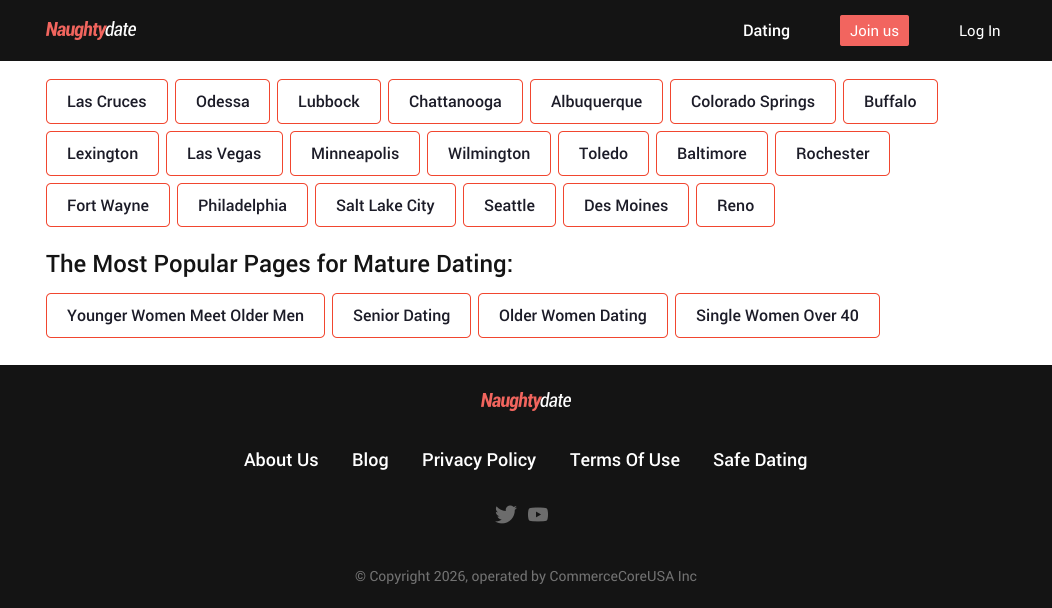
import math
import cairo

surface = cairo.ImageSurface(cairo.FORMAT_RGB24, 1052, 608)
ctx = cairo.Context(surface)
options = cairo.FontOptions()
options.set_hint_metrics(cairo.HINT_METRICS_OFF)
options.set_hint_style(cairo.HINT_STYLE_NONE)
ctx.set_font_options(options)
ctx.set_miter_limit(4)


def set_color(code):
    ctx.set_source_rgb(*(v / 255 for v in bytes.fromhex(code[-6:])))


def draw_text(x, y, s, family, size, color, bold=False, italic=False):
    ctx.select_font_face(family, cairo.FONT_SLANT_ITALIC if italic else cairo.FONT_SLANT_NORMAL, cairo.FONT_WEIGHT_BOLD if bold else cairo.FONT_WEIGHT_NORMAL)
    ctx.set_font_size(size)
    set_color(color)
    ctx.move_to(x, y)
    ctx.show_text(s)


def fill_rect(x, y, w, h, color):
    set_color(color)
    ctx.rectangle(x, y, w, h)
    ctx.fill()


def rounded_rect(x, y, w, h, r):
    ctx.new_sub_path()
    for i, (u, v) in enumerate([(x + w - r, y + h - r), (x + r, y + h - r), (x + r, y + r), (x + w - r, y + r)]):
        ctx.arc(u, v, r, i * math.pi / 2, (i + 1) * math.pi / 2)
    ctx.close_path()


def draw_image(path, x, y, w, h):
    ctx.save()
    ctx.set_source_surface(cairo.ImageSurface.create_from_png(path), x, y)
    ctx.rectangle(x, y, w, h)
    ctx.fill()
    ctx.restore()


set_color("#ffffff")
ctx.paint()
fill_rect(0, 0, 1052, 61, "#141414")
draw_image("assets/img1.png", 46, 21, 90, 20)
draw_text(743, 36, "Dating", "Roboto Medium", 16, "#ffffff")
set_color("#f2655f")
rounded_rect(840, 15, 69, 31, 2)
ctx.fill()
draw_text(850, 36, "Join us", "Roboto", 15, "#ffffff")
draw_text(959, 36, "Log In", "Roboto", 15, "#ffffff")
rounded_rect(46.5, 79.5, 121, 44, 4.5)
set_color("#f1462f")
ctx.set_line_width(1)
ctx.stroke()
draw_text(67, 107, "Las Cruces", "Roboto Medium", 16, "#1c1c28")
rounded_rect(175.5, 79.5, 94, 44, 4.5)
set_color("#f1462f")
ctx.stroke()
draw_text(196, 107, "Odessa", "Roboto Medium", 16, "#1c1c28")
rounded_rect(277.5, 79.5, 103, 44, 4.5)
set_color("#f1462f")
ctx.stroke()
draw_text(298, 107, "Lubbock", "Roboto Medium", 16, "#1c1c28")
rounded_rect(388.5, 79.5, 134, 44, 4.5)
set_color("#f1462f")
ctx.stroke()
draw_text(409, 107, "Chattanooga", "Roboto Medium", 16, "#1c1c28")
rounded_rect(530.5, 79.5, 132, 44, 4.5)
set_color("#f1462f")
ctx.stroke()
draw_text(551, 107, "Albuquerque", "Roboto Medium", 16, "#1c1c28")
rounded_rect(670.5, 79.5, 165, 44, 4.5)
set_color("#f1462f")
ctx.stroke()
draw_text(691, 107, "Colorado Springs", "Roboto Medium", 16, "#1c1c28")
rounded_rect(843.5, 79.5, 94, 44, 4.5)
set_color("#f1462f")
ctx.stroke()
draw_text(864, 107, "Buffalo", "Roboto Medium", 16, "#1c1c28")
rounded_rect(46.5, 131.5, 112, 44, 4.5)
set_color("#f1462f")
ctx.stroke()
draw_text(67, 159, "Lexington", "Roboto Medium", 16, "#1c1c28")
rounded_rect(166.5, 131.5, 116, 44, 4.5)
set_color("#f1462f")
ctx.stroke()
draw_text(187, 159, "Las Vegas", "Roboto Medium", 16, "#1c1c28")
rounded_rect(290.5, 131.5, 129, 44, 4.5)
set_color("#f1462f")
ctx.stroke()
draw_text(311, 159, "Minneapolis", "Roboto Medium", 16, "#1c1c28")
rounded_rect(427.5, 131.5, 123, 44, 4.5)
set_color("#f1462f")
ctx.stroke()
draw_text(448, 159, "Wilmington", "Roboto Medium", 16, "#1c1c28")
rounded_rect(558.5, 131.5, 90, 44, 4.5)
set_color("#f1462f")
ctx.stroke()
draw_text(579, 159, "Toledo", "Roboto Medium", 16, "#1c1c28")
rounded_rect(656.5, 131.5, 111, 44, 4.5)
set_color("#f1462f")
ctx.stroke()
draw_text(677, 159, "Baltimore", "Roboto Medium", 16, "#1c1c28")
rounded_rect(775.5, 131.5, 114, 44, 4.5)
set_color("#f1462f")
ctx.stroke()
draw_text(796, 159, "Rochester", "Roboto Medium", 16, "#1c1c28")
rounded_rect(46.5, 183.5, 123, 43, 4.5)
set_color("#f1462f")
ctx.stroke()
draw_text(67, 211, "Fort Wayne", "Roboto Medium", 16, "#1c1c28")
rounded_rect(177.5, 183.5, 130, 43, 4.5)
set_color("#f1462f")
ctx.stroke()
draw_text(198, 211, "Philadelphia", "Roboto Medium", 16, "#1c1c28")
rounded_rect(315.5, 183.5, 140, 43, 4.5)
set_color("#f1462f")
ctx.stroke()
draw_text(336, 211, "Salt Lake City", "Roboto Medium", 16, "#1c1c28")
rounded_rect(463.5, 183.5, 92, 43, 4.5)
set_color("#f1462f")
ctx.stroke()
draw_text(484, 211, "Seattle", "Roboto Medium", 16, "#1c1c28")
rounded_rect(563.5, 183.5, 125, 43, 4.5)
set_color("#f1462f")
ctx.stroke()
draw_text(584, 211, "Des Moines", "Roboto Medium", 16, "#1c1c28")
rounded_rect(696.5, 183.5, 78, 43, 4.5)
set_color("#f1462f")
ctx.stroke()
draw_text(717, 211, "Reno", "Roboto Medium", 16, "#1c1c28")
draw_text(46, 272, "The Most Popular Pages for Mature Dating:", "Roboto Medium", 24, "#141414")
rounded_rect(46.5, 293.5, 278, 44, 4.5)
set_color("#f1462f")
ctx.stroke()
draw_text(67, 321, "Younger Women Meet Older Men", "Roboto Medium", 16, "#1c1c28")
rounded_rect(332.5, 293.5, 138, 44, 4.5)
set_color("#f1462f")
ctx.stroke()
draw_text(353, 321, "Senior Dating", "Roboto Medium", 16, "#1c1c28")
rounded_rect(478.5, 293.5, 189, 44, 4.5)
set_color("#f1462f")
ctx.stroke()
draw_text(499, 321, "Older Women Dating", "Roboto Medium", 16, "#1c1c28")
rounded_rect(675.5, 293.5, 204, 44, 4.5)
set_color("#f1462f")
ctx.stroke()
draw_text(696, 321, "Single Women Over 40", "Roboto Medium", 16, "#1c1c28")
fill_rect(0, 366, 1052, 242, "#141414")
fill_rect(0, 365, 1052, 1, "#121212")
draw_image("assets/img1.png", 481, 392, 90, 20)
draw_text(244, 466, "About Us", "Roboto Medium", 18, "#ffffff")
draw_text(352, 466, "Blog", "Roboto Medium", 18, "#ffffff")
draw_text(422, 466, "Privacy Policy", "Roboto Medium", 18, "#ffffff")
draw_text(570, 466, "Terms Of Use", "Roboto Medium", 18, "#ffffff")
draw_text(713, 466, "Safe Dating", "Roboto Medium", 18, "#ffffff")
draw_image("assets/img2.png", 495, 505, 22, 19)
draw_image("assets/img3.png", 528, 507, 20, 15)
draw_text(355, 581, "© Copyright 2026, operated by CommerceCoreUSA Inc", "Roboto", 14, "#727272")
surface.write_to_png("output.png")
